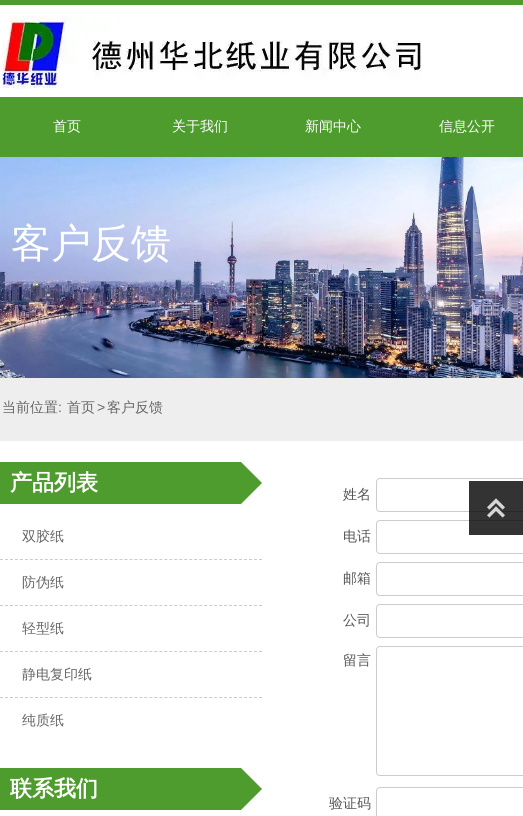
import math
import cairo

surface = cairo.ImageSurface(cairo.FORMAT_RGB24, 523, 816)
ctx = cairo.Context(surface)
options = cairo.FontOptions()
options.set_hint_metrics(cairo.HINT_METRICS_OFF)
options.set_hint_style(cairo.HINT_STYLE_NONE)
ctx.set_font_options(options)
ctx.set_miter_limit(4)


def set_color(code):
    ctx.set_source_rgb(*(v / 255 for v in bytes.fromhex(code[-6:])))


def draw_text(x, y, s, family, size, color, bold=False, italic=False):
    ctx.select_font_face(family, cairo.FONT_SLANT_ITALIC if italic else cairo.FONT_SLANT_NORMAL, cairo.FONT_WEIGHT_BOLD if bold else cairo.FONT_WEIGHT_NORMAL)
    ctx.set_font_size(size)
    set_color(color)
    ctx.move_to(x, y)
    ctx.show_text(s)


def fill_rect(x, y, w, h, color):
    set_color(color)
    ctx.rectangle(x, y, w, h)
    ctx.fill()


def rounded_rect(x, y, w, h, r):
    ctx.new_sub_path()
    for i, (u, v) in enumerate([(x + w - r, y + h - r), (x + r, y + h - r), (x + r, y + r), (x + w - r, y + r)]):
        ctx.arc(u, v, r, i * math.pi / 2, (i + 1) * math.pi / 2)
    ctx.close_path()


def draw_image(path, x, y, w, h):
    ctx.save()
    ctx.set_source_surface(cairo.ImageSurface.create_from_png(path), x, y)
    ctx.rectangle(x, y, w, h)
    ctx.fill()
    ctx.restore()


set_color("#ffffff")
ctx.paint()
fill_rect(0, 0, 523, 5, "#4f9c2e")
draw_image("assets/img1.png", 2, 16, 420, 73)
fill_rect(0, 97, 523, 60, "#4f9c2e")
draw_text(53, 131, "首页", "WenQuanYi Zen Hei Medium", 14, "#ffffff")
draw_text(172, 131, "关于我们", "WenQuanYi Zen Hei Medium", 14, "#ffffff")
draw_text(305, 131, "新闻中心", "WenQuanYi Zen Hei Medium", 14, "#ffffff")
draw_text(439, 131, "信息公开", "WenQuanYi Zen Hei Medium", 14, "#ffffff")
draw_image("assets/img2.png", 0, 157, 523, 221)
draw_text(11, 257, "客户反馈", "WenQuanYi Zen Hei Medium", 40, "#ffffff")
fill_rect(0, 378, 523, 63, "#eeeeee")
draw_text(2, 412, "当前位置", "WenQuanYi Zen Hei Medium", 14, "#666666")
draw_text(58, 412, ":", "Liberation Sans", 14, "#666666")
draw_text(67, 412, "首页", "WenQuanYi Zen Hei Medium", 14, "#666666")
draw_text(97, 412, ">", "Liberation Sans", 14, "#666666")
draw_text(107, 412, "客户反馈", "WenQuanYi Zen Hei Medium", 14, "#666666")
fill_rect(0, 462, 212, 42, "#4f9c2e")
ctx.save()
ctx.rectangle(0, 462, 262, 42)
ctx.clip()
ctx.new_path()
ctx.move_to(262, 483)
ctx.line_to(212, 483)
ctx.line_to(212, 433)
ctx.close_path()
ctx.move_to(212, 483)
ctx.line_to(262, 483)
ctx.line_to(212, 533)
ctx.close_path()
ctx.fill()
ctx.restore()
draw_text(10, 490, "产品列表", "WenQuanYi Zen Hei", 22, "#ffffff", bold=True)
ctx.new_path()
ctx.move_to(0, 559.5)
ctx.line_to(262, 559.5)
set_color("#cccccc")
ctx.set_line_width(1)
ctx.set_dash([3, 1.98])
ctx.stroke()
draw_text(22, 541, "双胶纸", "WenQuanYi Zen Hei Medium", 14, "#666666")
ctx.new_path()
ctx.move_to(0, 605.5)
ctx.line_to(262, 605.5)
set_color("#cccccc")
ctx.stroke()
draw_text(22, 587, "防伪纸", "WenQuanYi Zen Hei Medium", 14, "#666666")
ctx.new_path()
ctx.move_to(0, 651.5)
ctx.line_to(262, 651.5)
set_color("#cccccc")
ctx.stroke()
draw_text(22, 633, "轻型纸", "WenQuanYi Zen Hei Medium", 14, "#666666")
ctx.new_path()
ctx.move_to(0, 697.5)
ctx.line_to(262, 697.5)
set_color("#cccccc")
ctx.stroke()
draw_text(22, 679, "静电复印纸", "WenQuanYi Zen Hei Medium", 14, "#666666")
draw_text(22, 725, "纯质纸", "WenQuanYi Zen Hei Medium", 14, "#666666")
fill_rect(0, 768, 212, 42, "#4f9c2e")
ctx.save()
ctx.rectangle(0, 768, 262, 42)
ctx.clip()
ctx.new_path()
ctx.move_to(262, 789)
ctx.line_to(212, 789)
ctx.line_to(212, 739)
ctx.close_path()
ctx.move_to(212, 789)
ctx.line_to(262, 789)
ctx.line_to(212, 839)
ctx.close_path()
ctx.fill()
ctx.restore()
draw_text(10, 796, "联系我们", "WenQuanYi Zen Hei", 22, "#ffffff", bold=True)
draw_text(343, 499, "姓名", "WenQuanYi Zen Hei Medium", 14, "#555555")
rounded_rect(376.5, 478.5, 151, 33, 3.5)
set_color("#cccccc")
ctx.set_dash([])
ctx.stroke()
draw_text(343, 541, "电话", "WenQuanYi Zen Hei Medium", 14, "#555555")
rounded_rect(376.5, 520.5, 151, 33, 3.5)
set_color("#cccccc")
ctx.stroke()
draw_text(343, 583, "邮箱", "WenQuanYi Zen Hei Medium", 14, "#555555")
rounded_rect(376.5, 562.5, 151, 33, 3.5)
set_color("#cccccc")
ctx.stroke()
draw_text(343, 625, "公司", "WenQuanYi Zen Hei Medium", 14, "#555555")
rounded_rect(376.5, 604.5, 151, 33, 3.5)
set_color("#cccccc")
ctx.stroke()
draw_text(343, 665, "留言", "WenQuanYi Zen Hei Medium", 14, "#555555")
rounded_rect(376.5, 646.5, 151, 129, 3.5)
set_color("#cccccc")
ctx.stroke()
draw_text(329, 808, "验证码", "WenQuanYi Zen Hei Medium", 14, "#555555")
rounded_rect(376.5, 787.5, 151, 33, 3.5)
set_color("#cccccc")
ctx.stroke()
ctx.set_source_rgba(0, 0, 0, 0.8)
ctx.rectangle(469, 481, 54, 54)
ctx.fill()
draw_image("assets/img3.png", 487, 498, 18, 20)
surface.write_to_png("output.png")
